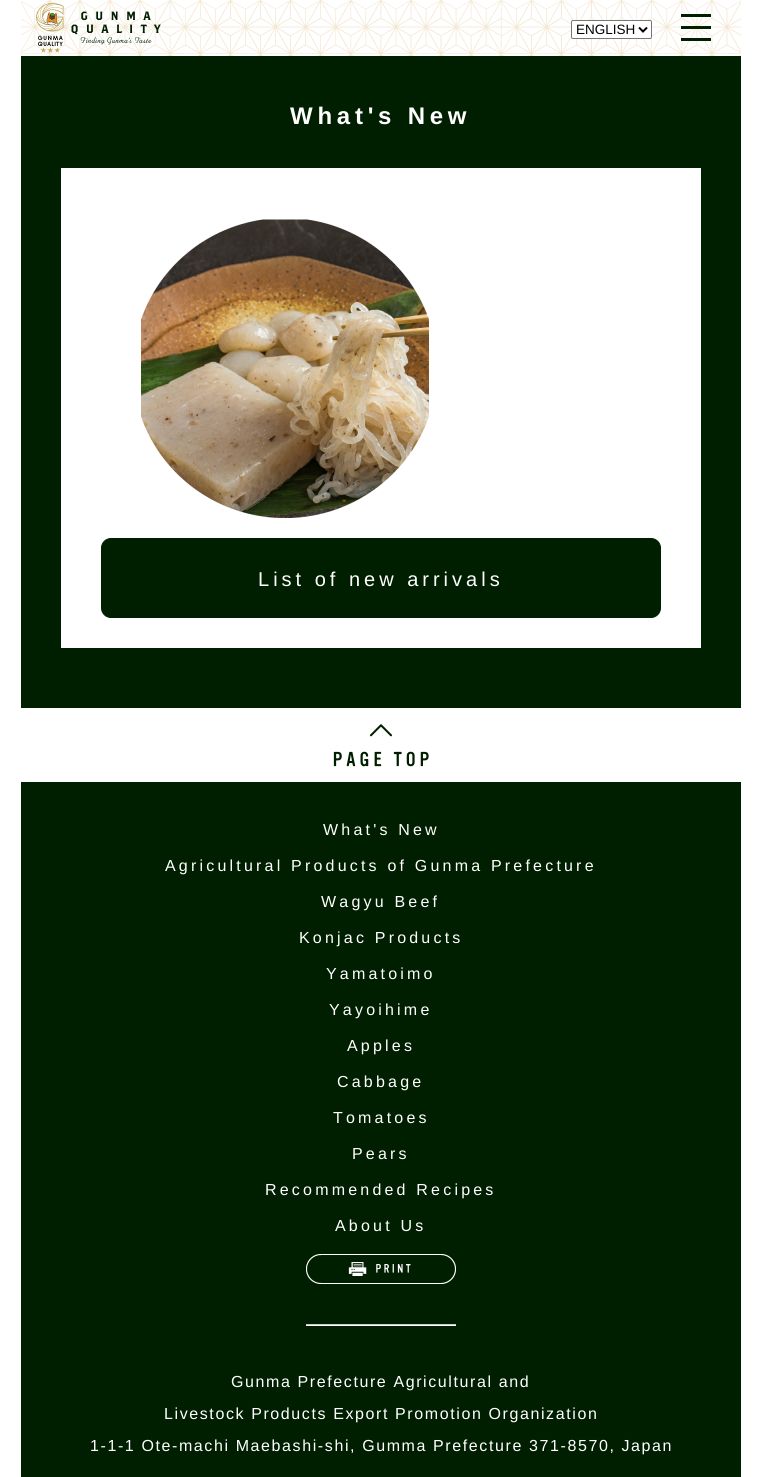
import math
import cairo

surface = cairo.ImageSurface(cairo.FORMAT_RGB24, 762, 1477)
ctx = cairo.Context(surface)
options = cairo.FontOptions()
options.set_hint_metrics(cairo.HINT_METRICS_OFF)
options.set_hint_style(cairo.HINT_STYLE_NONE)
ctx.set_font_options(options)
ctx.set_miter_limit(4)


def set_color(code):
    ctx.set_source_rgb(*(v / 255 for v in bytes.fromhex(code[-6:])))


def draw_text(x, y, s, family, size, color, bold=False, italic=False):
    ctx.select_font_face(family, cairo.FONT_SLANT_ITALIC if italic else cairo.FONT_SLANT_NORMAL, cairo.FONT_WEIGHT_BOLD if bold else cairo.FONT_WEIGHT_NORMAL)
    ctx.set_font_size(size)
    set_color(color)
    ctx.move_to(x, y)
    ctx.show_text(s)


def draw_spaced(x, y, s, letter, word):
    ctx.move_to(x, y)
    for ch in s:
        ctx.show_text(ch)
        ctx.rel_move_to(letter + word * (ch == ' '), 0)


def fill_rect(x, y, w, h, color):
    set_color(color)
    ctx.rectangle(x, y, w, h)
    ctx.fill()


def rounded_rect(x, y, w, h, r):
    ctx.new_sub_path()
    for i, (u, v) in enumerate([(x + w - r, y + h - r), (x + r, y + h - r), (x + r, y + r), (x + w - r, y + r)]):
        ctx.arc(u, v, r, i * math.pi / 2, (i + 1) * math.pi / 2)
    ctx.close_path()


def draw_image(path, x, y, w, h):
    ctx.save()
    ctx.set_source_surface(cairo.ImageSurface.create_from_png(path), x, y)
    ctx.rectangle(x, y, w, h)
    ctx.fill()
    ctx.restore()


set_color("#ffffff")
ctx.paint()
draw_image("assets/img1.png", 21, 0, 720, 56)
draw_image("assets/img2.png", 36, 3, 125, 50)
set_color("#ffffff")
rounded_rect(571.5, 20.5, 80, 18, 1.5)
ctx.fill_preserve()
set_color("#767676")
ctx.set_line_width(1)
ctx.stroke()
ctx.new_path()
ctx.move_to(639, 27.5)
ctx.line_to(643, 31.5)
ctx.line_to(647, 27.5)
set_color("#000000")
ctx.set_line_width(2)
ctx.stroke()
draw_text(576, 34, "ENGLISH", "Liberation Sans", 13.5, "#000000")
fill_rect(681, 14, 30, 3, "#001e00")
fill_rect(681, 26, 30, 3, "#001e00")
fill_rect(681, 38, 30, 3, "#001e00")
fill_rect(21, 56, 720, 652, "#001e00")
ctx.select_font_face("Liberation Sans", cairo.FONT_SLANT_NORMAL, cairo.FONT_WEIGHT_BOLD)
ctx.set_font_size(24)
set_color("#ffffff")
draw_spaced(290, 124, "What's New", 4.75, 0)
fill_rect(61, 168, 640, 480, "#ffffff")
draw_image("assets/img3.png", 141, 219, 288, 299)
set_color("#001e00")
rounded_rect(101.5, 538.5, 559, 79, 9.5)
ctx.fill_preserve()
ctx.set_line_width(1)
ctx.stroke()
ctx.select_font_face("Liberation Sans")
ctx.set_font_size(20)
set_color("#ffffff")
draw_spaced(258, 586, "List of new arrivals", 4, 0)
draw_image("assets/img4.png", 333, 724, 96, 43)
fill_rect(21, 782, 720, 695, "#001e00")
ctx.set_font_size(16)
set_color("#ffffff")
draw_spaced(323, 835, "What's New", 3.2, 0)
draw_spaced(165, 871, "Agricultural Products of Gunma Prefecture", 3.2, 0)
draw_spaced(321, 907, "Wagyu Beef", 3.2, 0)
draw_spaced(299, 943, "Konjac Products", 3.2, 0)
draw_spaced(326, 979, "Yamatoimo", 3.2, 0)
draw_spaced(329, 1015, "Yayoihime", 3.2, 0)
draw_spaced(347, 1051, "Apples", 3.2, 0)
draw_spaced(337, 1087, "Cabbage", 3.2, 0)
draw_spaced(333, 1123, "Tomatoes", 3.2, 0)
draw_spaced(352, 1159, "Pears", 3.2, 0)
draw_spaced(265, 1195, "Recommended Recipes", 3.2, 0)
draw_spaced(335, 1231, "About Us", 3.2, 0)
draw_image("assets/img5.png", 306, 1254, 150, 30)
fill_rect(306, 1325, 150, 1, "#ffffff")
fill_rect(306, 1324, 150, 1, "#cccccc")
set_color("#ffffff")
draw_spaced(231, 1387, "Gunma Prefecture Agricultural and", 1.6, 0)
draw_spaced(164, 1419, "Livestock Products Export Promotion Organization", 1.6, 0)
draw_spaced(90, 1451, "1-1-1 Ote-machi Maebashi-shi, Gumma Prefecture 371-8570, Japan", 1.6, 0)
surface.write_to_png("output.png")
